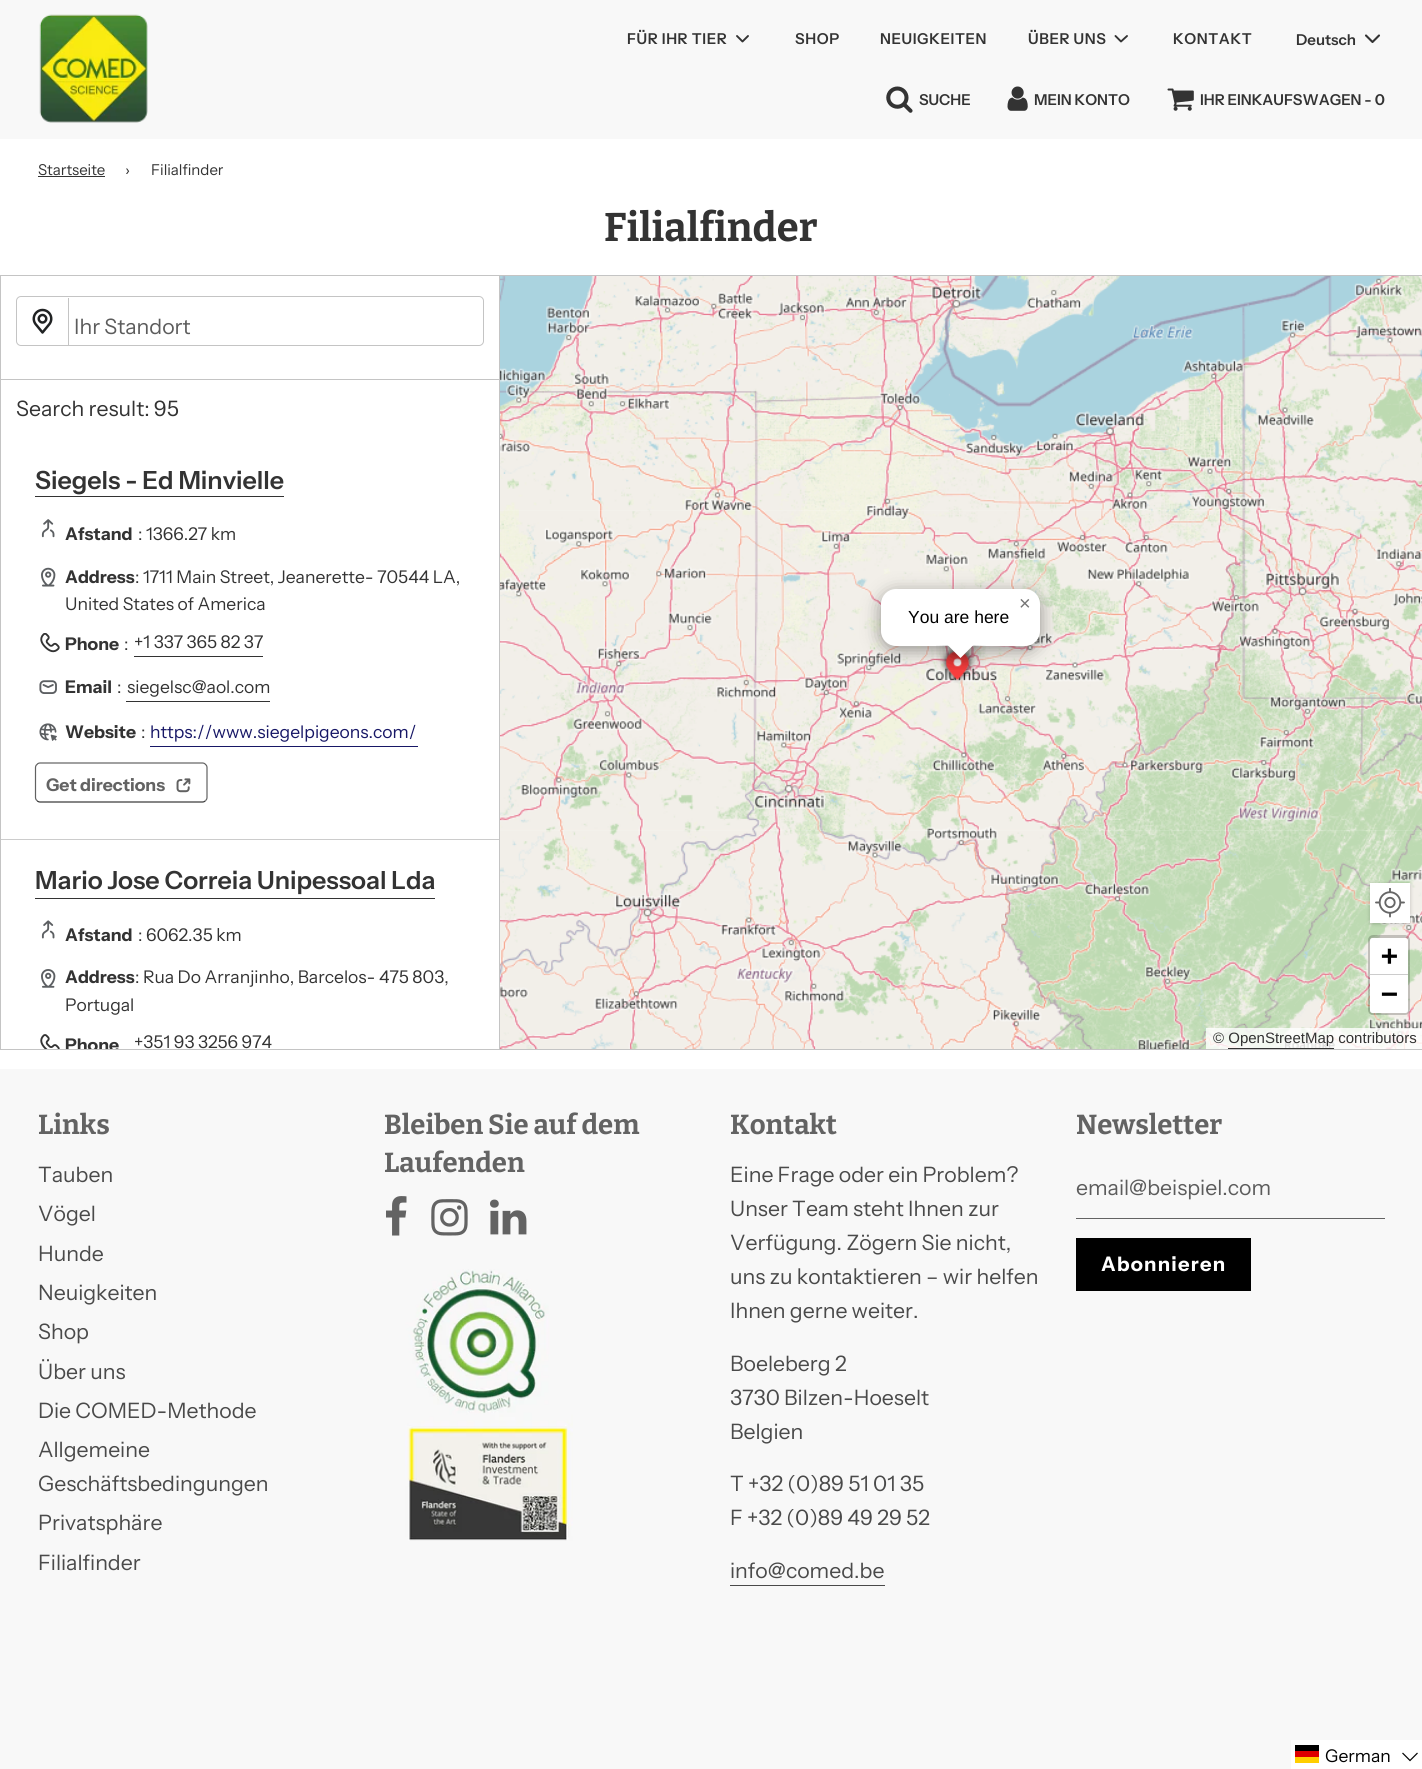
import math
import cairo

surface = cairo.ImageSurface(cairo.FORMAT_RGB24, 1422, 1769)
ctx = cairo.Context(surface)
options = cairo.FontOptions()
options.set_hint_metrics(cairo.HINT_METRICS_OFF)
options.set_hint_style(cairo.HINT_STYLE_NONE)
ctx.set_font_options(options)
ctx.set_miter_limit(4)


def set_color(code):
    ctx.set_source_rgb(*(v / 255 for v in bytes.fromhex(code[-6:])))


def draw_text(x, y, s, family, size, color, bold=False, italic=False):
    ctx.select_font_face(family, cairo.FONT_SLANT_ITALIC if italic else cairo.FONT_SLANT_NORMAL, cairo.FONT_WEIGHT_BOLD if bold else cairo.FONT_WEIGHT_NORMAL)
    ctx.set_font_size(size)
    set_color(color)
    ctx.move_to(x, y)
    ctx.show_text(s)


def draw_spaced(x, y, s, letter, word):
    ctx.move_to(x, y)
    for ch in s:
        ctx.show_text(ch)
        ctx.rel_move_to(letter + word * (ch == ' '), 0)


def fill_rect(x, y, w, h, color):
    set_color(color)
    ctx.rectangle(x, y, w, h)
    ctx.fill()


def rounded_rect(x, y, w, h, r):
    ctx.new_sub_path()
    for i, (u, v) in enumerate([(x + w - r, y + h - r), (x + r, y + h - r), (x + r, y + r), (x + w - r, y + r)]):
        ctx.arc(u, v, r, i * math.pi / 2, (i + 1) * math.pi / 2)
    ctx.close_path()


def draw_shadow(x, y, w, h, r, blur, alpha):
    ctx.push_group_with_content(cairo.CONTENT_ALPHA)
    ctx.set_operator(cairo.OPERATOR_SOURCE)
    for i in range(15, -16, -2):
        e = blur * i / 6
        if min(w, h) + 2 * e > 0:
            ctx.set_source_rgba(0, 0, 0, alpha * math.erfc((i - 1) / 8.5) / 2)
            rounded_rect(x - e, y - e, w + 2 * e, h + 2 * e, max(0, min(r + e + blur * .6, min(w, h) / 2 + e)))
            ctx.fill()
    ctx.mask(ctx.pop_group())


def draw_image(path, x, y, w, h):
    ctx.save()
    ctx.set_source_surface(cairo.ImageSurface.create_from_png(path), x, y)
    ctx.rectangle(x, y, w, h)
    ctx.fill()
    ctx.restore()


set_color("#ffffff")
ctx.paint()
fill_rect(0, 0, 1422, 139, "#f8f8f8")
draw_image("assets/img1.png", 39, 14, 109, 109)
ctx.select_font_face("Instrument Sans SemiBold")
ctx.set_font_size(15)
set_color("#333333")
draw_spaced(627, 44, "FÜR IHR TIER", 0.6, 0)
ctx.new_path()
ctx.move_to(737, 36)
ctx.line_to(742.5, 41.5)
ctx.line_to(748, 36)
ctx.set_line_width(1.9)
ctx.set_line_cap(cairo.LINE_CAP_ROUND)
ctx.set_line_join(cairo.LINE_JOIN_ROUND)
ctx.stroke()
draw_spaced(795, 44, "SHOP", 0.6, 0)
draw_spaced(880, 44, "NEUIGKEITEN", 0.6, 0)
draw_spaced(1028, 44, "ÜBER UNS", 0.6, 0)
ctx.new_path()
ctx.move_to(1115.5, 36)
ctx.line_to(1121, 41.5)
ctx.line_to(1127, 36)
ctx.stroke()
draw_spaced(1173, 44, "KONTAKT", 0.6, 0)
draw_text(1296, 45, "Deutsch", "Instrument Sans SemiBold", 15, "#333333")
ctx.new_path()
ctx.move_to(1366, 35.5)
ctx.line_to(1372.5, 42)
ctx.line_to(1379, 35.5)
ctx.set_line_width(2.1)
ctx.stroke()
draw_image("assets/img2.png", 886, 86, 27, 27)
draw_text(919, 105, "SUCHE", "Instrument Sans SemiBold", 15, "#333333")
draw_image("assets/img3.png", 1007, 86, 21, 25)
draw_text(1034, 105, "MEIN KONTO", "Instrument Sans SemiBold", 15, "#333333")
draw_image("assets/img4.png", 1167, 88, 27, 23)
draw_text(1200, 105, "IHR EINKAUFSWAGEN - 0", "Instrument Sans SemiBold", 15, "#333333")
draw_text(38, 175, "Startseite", "Instrument Sans", 15, "#333333")
fill_rect(38, 176, 67, 1, "#333333")
draw_text(125, 175, "›", "Instrument Sans", 15, "#333333")
draw_text(151, 175, "Filialfinder", "Instrument Sans", 15, "#333333")
draw_text(604, 241, "Filialfinder", "Bitter", 40, "#333333", bold=True)
ctx.rectangle(0.5, 275.5, 499, 774)
set_color("#c4c4c4")
ctx.set_line_width(1)
ctx.set_line_cap(cairo.LINE_CAP_BUTT)
ctx.set_line_join(cairo.LINE_JOIN_MITER)
ctx.stroke()
fill_rect(1, 379, 498, 1, "#c4c4c4")
rounded_rect(16.5, 296.5, 467, 49, 4.5)
ctx.stroke()
fill_rect(68, 298, 1, 47, "#c4c4c4")
draw_image("assets/img5.png", 32, 308, 21, 26)
draw_text(74, 334, "Ihr Standort", "Instrument Sans", 21.25, "#5c5c5c")
draw_text(16, 416, "Search result: 95", "Instrument Sans", 21.25, "#333333")
fill_rect(1, 839, 498, 1, "#cccccc")
draw_text(35, 489, "Siegels - Ed Minvielle", "Instrument Sans SemiBold", 25, "#333333")
fill_rect(35, 496, 249, 1, "#333333")
draw_image("assets/img6.png", 41, 519, 14, 19)
draw_text(65, 540, "Afstand", "Instrument Sans", 17.5, "#333333", bold=True)
draw_text(138, 540, ": 1366.27 km", "Instrument Sans", 17.5, "#333333")
draw_image("assets/img7.png", 41, 567, 15, 20)
draw_text(65, 583, "Address", "Instrument Sans", 17.5, "#333333", bold=True)
draw_text(135, 583, ": 1711 Main Street, Jeanerette- 70544 LA,", "Instrument Sans", 17.5, "#333333")
draw_text(65, 610, "United States of America", "Instrument Sans", 17.5, "#333333")
draw_image("assets/img8.png", 40, 633, 20, 20)
draw_text(65, 650, "Phone", "Instrument Sans", 17.5, "#333333", bold=True)
draw_text(124, 650, ":", "Instrument Sans", 17.5, "#333333")
fill_rect(134, 656, 129, 1, "#333333")
draw_text(134, 648, "+1 337 365 82 37", "Instrument Sans", 17.5, "#333333")
draw_image("assets/img9.png", 39, 680, 18, 14)
draw_text(65, 693, "Email", "Instrument Sans", 17.5, "#333333", bold=True)
draw_text(117, 693, ":", "Instrument Sans", 17.5, "#333333")
fill_rect(126, 701, 144, 1, "#333333")
draw_text(127, 693, "siegelsc@aol.com", "Instrument Sans", 17.5, "#333333")
draw_image("assets/img10.png", 39, 723, 18, 18)
draw_text(65, 738, "Website", "Instrument Sans", 17.5, "#333333", bold=True)
draw_text(141, 738, ":", "Instrument Sans", 17.5, "#333333")
fill_rect(150, 746, 268, 1, "#171766")
draw_text(150, 738, "https://www.siegelpigeons.com/", "Instrument Sans", 17.5, "#171766")
ctx.new_path()
ctx.move_to(205.5, 800.5)
ctx.curve_to(205, 801.5, 203.5, 802, 202.5, 802)
ctx.line_to(40, 802)
ctx.curve_to(39, 802, 37.5, 801.5, 37, 800.5)
set_color("#333333")
ctx.set_line_width(1.2)
ctx.stroke()
ctx.new_path()
ctx.move_to(37, 800.5)
ctx.curve_to(36, 800, 35.5, 798.5, 35.5, 797.5)
ctx.line_to(35.5, 767.5)
ctx.curve_to(35.5, 766.5, 36, 765, 37, 764.5)
ctx.curve_to(37.5, 763.5, 39, 763, 40, 763)
ctx.line_to(202.5, 763)
ctx.curve_to(203.5, 763, 205, 763.5, 205.5, 764.5)
ctx.curve_to(206.5, 765, 207, 766.5, 207, 767.5)
ctx.line_to(207, 797.5)
ctx.curve_to(207, 798.5, 206.5, 800, 205.5, 800.5)
set_color("#616161")
ctx.stroke()
draw_text(46, 791, "Get directions", "Instrument Sans", 17.5, "#636363", bold=True)
draw_image("assets/img11.png", 176, 778, 15, 15)
draw_text(35, 889, "Mario Jose Correia Unipessoal Lda", "Instrument Sans SemiBold", 25, "#333333")
fill_rect(35, 898, 400, 1, "#333333")
draw_image("assets/img12.png", 41, 920, 14, 19)
draw_text(65, 941, "Afstand", "Instrument Sans", 17.5, "#333333", bold=True)
draw_text(138, 941, ": 6062.35 km", "Instrument Sans", 17.5, "#333333")
draw_image("assets/img13.png", 41, 969, 15, 19)
draw_text(65, 983, "Address", "Instrument Sans", 17.5, "#333333", bold=True)
draw_text(135, 983, ": Rua Do Arranjinho, Barcelos- 475 803,", "Instrument Sans", 17.5, "#333333")
draw_text(65, 1011, "Portugal", "Instrument Sans", 17.5, "#333333")
draw_image("assets/img14.png", 40, 1034, 20, 15)
ctx.save()
ctx.rectangle(1, 276, 498, 773)
ctx.clip()
draw_text(65, 1051, "Phone", "Instrument Sans", 17.5, "#333333", bold=True)
ctx.restore()
draw_text(134, 1048, "+351 93 3256 974", "Instrument Sans", 17.5, "#333333")
fill_rect(500, 275, 922, 1, "#c4c4c4")
fill_rect(500, 1049, 922, 1, "#c4c4c4")
draw_image("assets/img15.png", 500, 276, 305, 234)
draw_image("assets/img16.png", 805, 276, 320, 234)
draw_image("assets/img17.png", 1125, 276, 297, 234)
draw_image("assets/img18.png", 500, 510, 305, 320)
draw_image("assets/img19.png", 805, 510, 320, 320)
draw_image("assets/img20.png", 1125, 510, 297, 320)
draw_image("assets/img21.png", 500, 829, 305, 220)
draw_image("assets/img22.png", 805, 829, 320, 220)
draw_image("assets/img23.png", 1125, 830, 297, 219)
draw_image("assets/img24.png", 940, 648, 35, 35)
set_color("#000000")
draw_shadow(881, 593, 159, 57, 15, 9, 0.4)
set_color("#ffffff")
rounded_rect(881, 589, 159, 57, 15)
ctx.fill()
draw_text(1019, 610, "×", "Liberation Sans", 20, "#757575")
ctx.save()
ctx.rectangle(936, 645, 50, 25)
ctx.clip()
set_color("#000000")
draw_shadow(950, 636, 21, 22, 0, 9, 0.4)
ctx.restore()
ctx.save()
ctx.rectangle(936, 645, 50, 25)
ctx.clip()
set_color("#ffffff")
ctx.new_path()
ctx.move_to(960.5, 628)
ctx.line_to(975.5, 643)
ctx.line_to(960.5, 658)
ctx.line_to(945.5, 643)
ctx.close_path()
ctx.fill()
ctx.restore()
draw_text(908, 623, "You are here", "Liberation Sans", 17.5, "#000000")
set_color("#000000")
draw_shadow(1371, 885, 38, 38, 0, 2.5, 0.3)
fill_rect(1370, 883, 40, 40, "#ffffff")
draw_image("assets/img25.png", 1375, 888, 30, 30)
rounded_rect(1369.5, 936.5, 39, 77, 3.5)
ctx.set_source_rgba(0, 0, 0, 0.2)
ctx.set_line_width(3)
ctx.stroke()
set_color("#ffffff")
ctx.new_path()
ctx.move_to(1372.5, 938)
ctx.line_to(1405.5, 938)
ctx.curve_to(1407, 938, 1408, 939, 1408, 940.5)
ctx.line_to(1408, 975)
ctx.line_to(1370, 975)
ctx.line_to(1370, 940.5)
ctx.curve_to(1370, 939, 1371, 938, 1372.5, 938)
ctx.close_path()
ctx.fill()
fill_rect(1370, 974, 38, 1, "#cccccc")
draw_text(1381, 965, "+", "DejaVu Sans Mono", 28, "#000000", bold=True)
set_color("#ffffff")
ctx.new_path()
ctx.move_to(1370, 975)
ctx.line_to(1408, 975)
ctx.line_to(1408, 1010.5)
ctx.curve_to(1408, 1012, 1407, 1013, 1405.5, 1013)
ctx.line_to(1372.5, 1013)
ctx.curve_to(1371, 1013, 1370, 1012, 1370, 1010.5)
ctx.close_path()
ctx.fill()
draw_text(1381, 1003, "−", "DejaVu Sans Mono", 28, "#000000", bold=True)
ctx.set_source_rgba(1, 1, 1, 0.8)
ctx.rectangle(1206, 1028, 216, 21)
ctx.fill()
draw_text(1213, 1043, "© OpenStreetMap contributors", "Liberation Sans", 15, "#333333")
fill_rect(1228, 1048, 106, 1, "#333333")
fill_rect(0, 1069, 1422, 700, "#f8f8f8")
draw_text(38, 1134, "Links", "Bitter", 27.5, "#636363", bold=True)
draw_text(38, 1182, "Tauben", "Instrument Sans", 21.25, "#4a4a4a")
draw_text(38, 1221, "Vögel", "Instrument Sans", 21.25, "#4a4a4a")
draw_text(38, 1261, "Hunde", "Instrument Sans", 21.25, "#4a4a4a")
draw_text(38, 1300, "Neuigkeiten", "Instrument Sans", 21.25, "#4a4a4a")
draw_text(38, 1339, "Shop", "Instrument Sans", 21.25, "#4a4a4a")
draw_text(38, 1379, "Über uns", "Instrument Sans", 21.25, "#4a4a4a")
draw_text(38, 1418, "Die COMED-Methode", "Instrument Sans", 21.25, "#4a4a4a")
draw_text(38, 1457, "Allgemeine", "Instrument Sans", 21.25, "#4a4a4a")
draw_text(38, 1491, "Geschäftsbedingungen", "Instrument Sans", 21.25, "#4a4a4a")
draw_text(38, 1530, "Privatsphäre", "Instrument Sans", 21.25, "#4a4a4a")
draw_text(38, 1570, "Filialfinder", "Instrument Sans", 21.25, "#4a4a4a")
draw_text(384, 1134, "Bleiben Sie auf dem", "Bitter", 27.5, "#636363", bold=True)
draw_text(384, 1172, "Laufenden", "Bitter", 27.5, "#636363", bold=True)
draw_image("assets/img26.png", 386, 1196, 21, 40)
draw_image("assets/img27.png", 431, 1199, 37, 37)
draw_image("assets/img28.png", 490, 1199, 37, 36)
draw_image("assets/img29.png", 405, 1269, 168, 272)
draw_text(730, 1134, "Kontakt", "Bitter", 27.5, "#636363", bold=True)
draw_text(730, 1182, "Eine Frage oder ein Problem?", "Instrument Sans", 21.25, "#4a4a4a")
draw_text(730, 1216, "Unser Team steht Ihnen zur", "Instrument Sans", 21.25, "#4a4a4a")
draw_text(730, 1250, "Verfügung. Zögern Sie nicht,", "Instrument Sans", 21.25, "#4a4a4a")
draw_text(730, 1284, "uns zu kontaktieren – wir helfen", "Instrument Sans", 21.25, "#4a4a4a")
draw_text(730, 1318, "Ihnen gerne weiter.", "Instrument Sans", 21.25, "#4a4a4a")
draw_text(730, 1371, "Boeleberg 2", "Instrument Sans", 21.25, "#4a4a4a")
draw_text(730, 1405, "3730 Bilzen-Hoeselt", "Instrument Sans", 21.25, "#4a4a4a")
draw_text(730, 1439, "Belgien", "Instrument Sans", 21.25, "#4a4a4a")
draw_text(730, 1491, "T +32 (0)89 51 01 35", "Instrument Sans", 21.25, "#4a4a4a")
draw_text(730, 1525, "F +32 (0)89 49 29 52", "Instrument Sans", 21.25, "#4a4a4a")
draw_text(730, 1578, "info@comed.be", "Instrument Sans", 21.25, "#4a4a4a")
fill_rect(730, 1585, 155, 1, "#4a4a4a")
draw_text(1076, 1134, "Newsletter", "Bitter", 27.5, "#636363", bold=True)
fill_rect(1076, 1218, 309, 1, "#636363")
draw_text(1076, 1195, "email@beispiel.com", "Instrument Sans", 21.25, "#5c5c5c")
fill_rect(1076, 1238, 175, 53, "#000000")
ctx.select_font_face("Instrument Sans", cairo.FONT_SLANT_NORMAL, cairo.FONT_WEIGHT_BOLD)
ctx.set_font_size(20)
set_color("#ffffff")
draw_spaced(1101, 1271, "Abonnieren", 1.25, 0)
fill_rect(1291, 1740, 131, 29, "#ffffff")
fill_rect(1295, 1757, 24, 6, "#ffce00")
fill_rect(1295, 1745, 24, 6, "#000000")
fill_rect(1295, 1751, 24, 6, "#dd0000")
draw_text(1325, 1762, "German", "Instrument Sans", 17.5, "#000000")
ctx.new_path()
ctx.move_to(1402.5, 1753)
ctx.line_to(1410, 1760.5)
ctx.line_to(1417.5, 1753)
ctx.set_line_width(1.2)
ctx.stroke()
surface.write_to_png("output.png")
